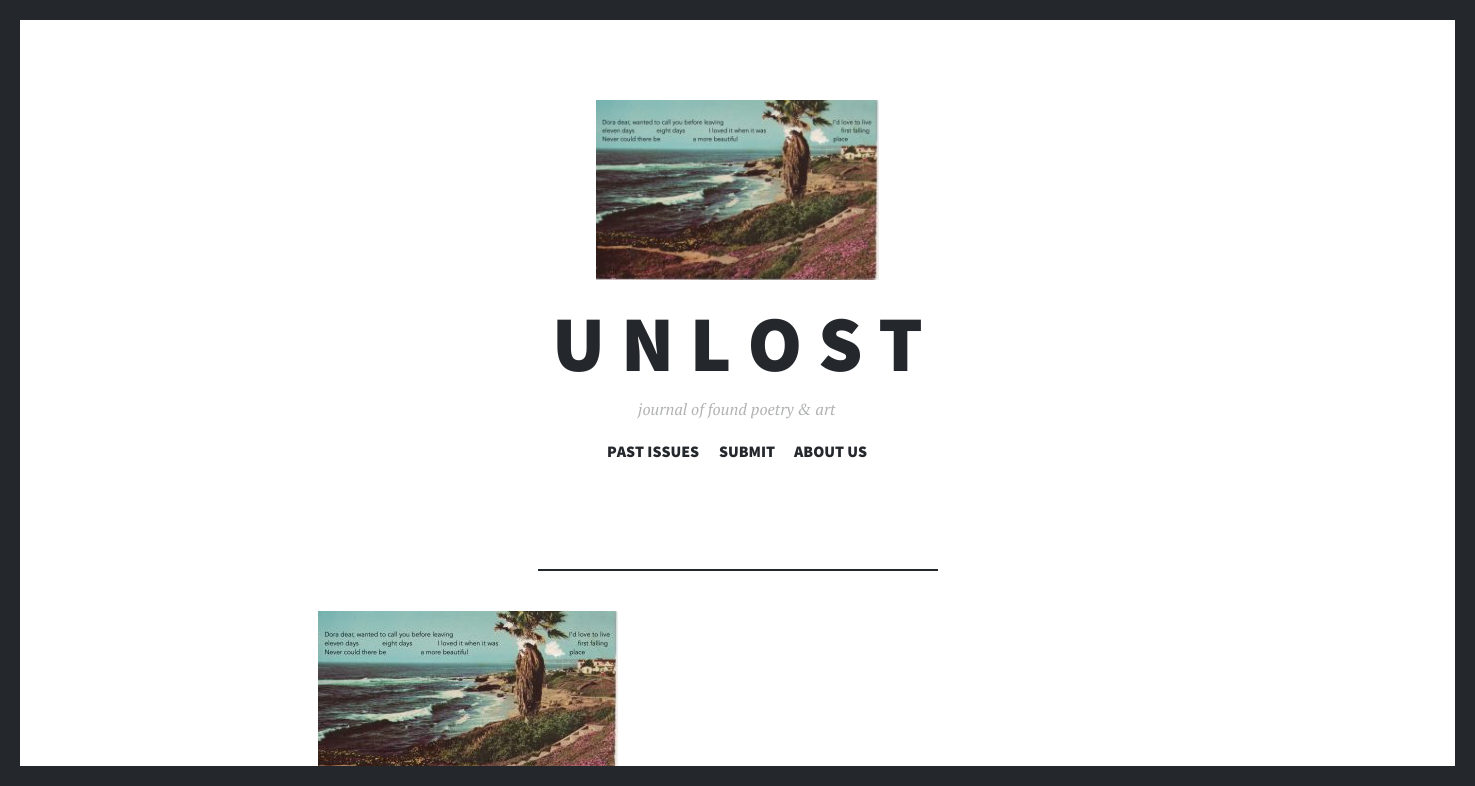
import math
import cairo

surface = cairo.ImageSurface(cairo.FORMAT_RGB24, 1475, 786)
ctx = cairo.Context(surface)
options = cairo.FontOptions()
options.set_hint_metrics(cairo.HINT_METRICS_OFF)
options.set_hint_style(cairo.HINT_STYLE_NONE)
ctx.set_font_options(options)
ctx.set_miter_limit(4)


def set_color(code):
    ctx.set_source_rgb(*(v / 255 for v in bytes.fromhex(code[-6:])))


def draw_text(x, y, s, family, size, color, bold=False, italic=False):
    ctx.select_font_face(family, cairo.FONT_SLANT_ITALIC if italic else cairo.FONT_SLANT_NORMAL, cairo.FONT_WEIGHT_BOLD if bold else cairo.FONT_WEIGHT_NORMAL)
    ctx.set_font_size(size)
    set_color(color)
    ctx.move_to(x, y)
    ctx.show_text(s)


def fill_rect(x, y, w, h, color):
    set_color(color)
    ctx.rectangle(x, y, w, h)
    ctx.fill()


def draw_image(path, x, y, w, h):
    ctx.save()
    ctx.set_source_surface(cairo.ImageSurface.create_from_png(path), x, y)
    ctx.rectangle(x, y, w, h)
    ctx.fill()
    ctx.restore()


set_color("#24282d")
ctx.paint()
fill_rect(20, 20, 1435, 746, "#ffffff")
draw_image("assets/img1.png", 596, 100, 283, 180)
draw_text(552, 371, "U N L O S T", "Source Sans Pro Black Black", 79, "#24282d")
draw_text(638, 415, "journal of found poetry & art", "PT Serif", 16, "#b1b2b3", italic=True)
draw_text(607, 457, "PAST ISSUES", "Source Sans Pro Black Black", 16, "#24282d")
draw_text(719, 457, "SUBMIT", "Source Sans Pro Black Black", 16, "#24282d")
draw_text(794, 457, "ABOUT US", "Source Sans Pro Black Black", 16, "#24282d")
fill_rect(538, 569, 400, 2, "#24282d")
draw_image("assets/img2.png", 318, 611, 300, 155)
surface.write_to_png("output.png")
